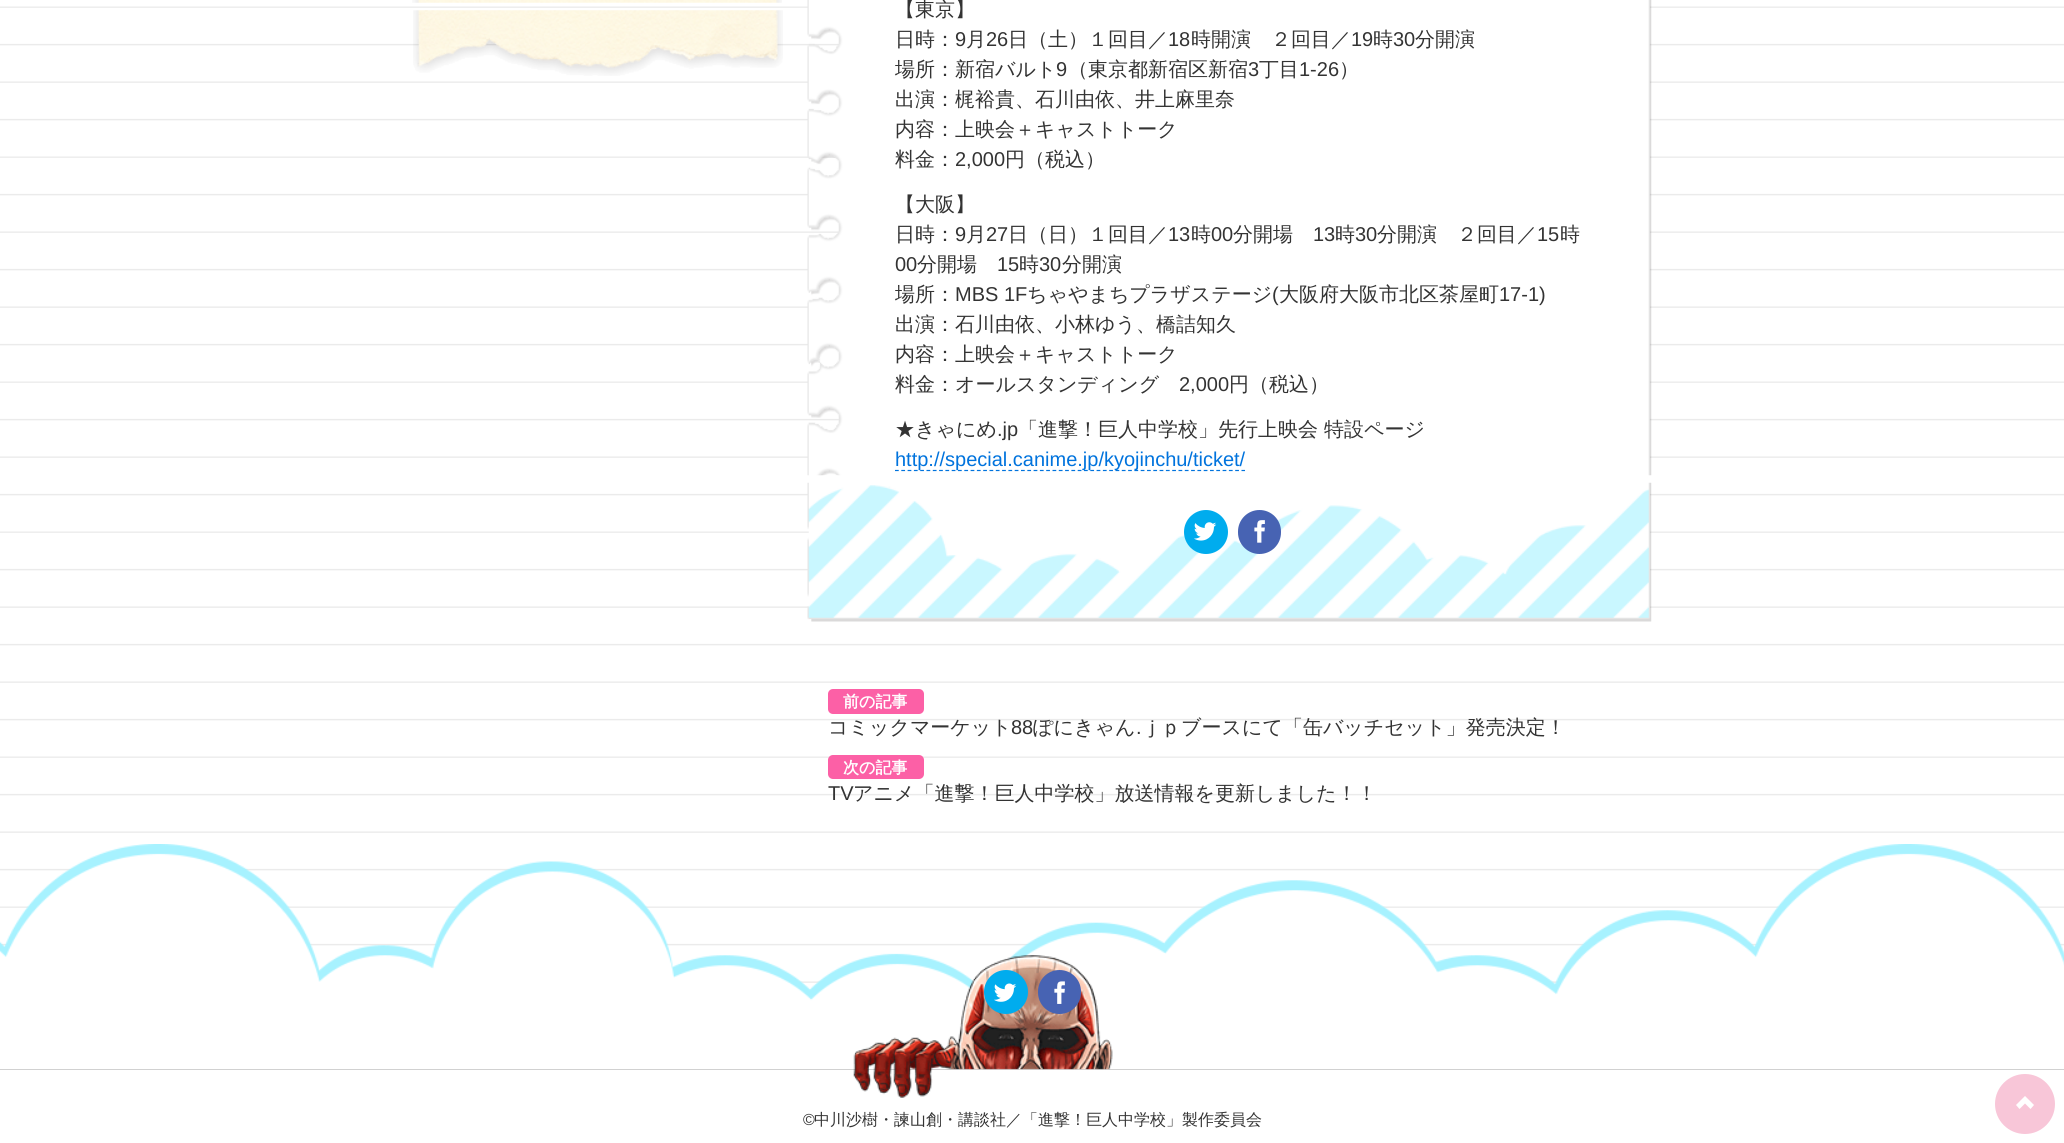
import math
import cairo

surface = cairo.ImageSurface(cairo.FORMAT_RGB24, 2064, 1143)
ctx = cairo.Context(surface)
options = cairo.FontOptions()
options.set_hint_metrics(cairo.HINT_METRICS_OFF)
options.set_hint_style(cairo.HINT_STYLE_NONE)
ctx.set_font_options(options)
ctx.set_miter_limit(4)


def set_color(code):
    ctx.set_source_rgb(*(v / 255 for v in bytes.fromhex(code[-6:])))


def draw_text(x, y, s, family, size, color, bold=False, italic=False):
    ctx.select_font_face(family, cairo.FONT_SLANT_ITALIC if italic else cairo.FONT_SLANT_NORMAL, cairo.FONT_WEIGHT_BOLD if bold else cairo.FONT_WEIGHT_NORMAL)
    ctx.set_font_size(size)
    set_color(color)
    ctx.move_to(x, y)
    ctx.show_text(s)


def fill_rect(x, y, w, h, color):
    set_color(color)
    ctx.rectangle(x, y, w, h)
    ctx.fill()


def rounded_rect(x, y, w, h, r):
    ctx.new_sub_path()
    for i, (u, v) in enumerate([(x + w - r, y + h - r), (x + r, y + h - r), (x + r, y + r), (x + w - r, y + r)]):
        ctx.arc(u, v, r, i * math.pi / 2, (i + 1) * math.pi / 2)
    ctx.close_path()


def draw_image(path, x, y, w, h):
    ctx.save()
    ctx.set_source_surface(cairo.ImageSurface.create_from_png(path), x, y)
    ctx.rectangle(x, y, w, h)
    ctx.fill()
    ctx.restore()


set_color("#ffffff")
ctx.paint()
draw_image("assets/img1.png", 0, 6, 2064, 985)
draw_image("assets/img2.png", 412, 0, 370, 3)
draw_image("assets/img3.png", 413, 10, 370, 66)
draw_image("assets/img4.png", 807, 0, 845, 476)
draw_text(895, 16, "【東京】", "WenQuanYi Zen Hei Medium", 20, "#333333")
draw_text(895, 46, "日時：", "WenQuanYi Zen Hei Medium", 20, "#333333")
draw_text(955, 46, "9", "Liberation Sans", 20, "#333333")
draw_text(966, 46, "月", "WenQuanYi Zen Hei Medium", 20, "#333333")
draw_text(986, 46, "26", "Liberation Sans", 20, "#333333")
draw_text(1008, 46, "日（土）１回目／", "WenQuanYi Zen Hei Medium", 20, "#333333")
draw_text(1168, 46, "18", "Liberation Sans", 20, "#333333")
draw_text(1191, 46, "時開演　２回目／", "WenQuanYi Zen Hei Medium", 20, "#333333")
draw_text(1351, 46, "19", "Liberation Sans", 20, "#333333")
draw_text(1373, 46, "時", "WenQuanYi Zen Hei Medium", 20, "#333333")
draw_text(1393, 46, "30", "Liberation Sans", 20, "#333333")
draw_text(1415, 46, "分開演", "WenQuanYi Zen Hei Medium", 20, "#333333")
draw_text(895, 76, "場所：新宿バルト", "WenQuanYi Zen Hei Medium", 20, "#333333")
draw_text(1056, 76, "9", "Liberation Sans", 20, "#333333")
draw_text(1068, 76, "（東京都新宿区新宿", "WenQuanYi Zen Hei Medium", 20, "#333333")
draw_text(1248, 76, "3", "Liberation Sans", 20, "#333333")
draw_text(1259, 76, "丁目", "WenQuanYi Zen Hei Medium", 20, "#333333")
draw_text(1299, 76, "1-26", "Liberation Sans", 20, "#333333")
draw_text(1339, 76, "）", "WenQuanYi Zen Hei Medium", 20, "#333333")
draw_text(895, 106, "出演：梶裕貴、石川由依、井上麻里奈", "WenQuanYi Zen Hei Medium", 20, "#333333")
draw_text(895, 136, "内容：上映会＋キャストトーク", "WenQuanYi Zen Hei Medium", 20, "#333333")
draw_text(895, 166, "料金：", "WenQuanYi Zen Hei Medium", 20, "#333333")
draw_text(955, 166, "2,000", "Liberation Sans", 20, "#333333")
draw_text(1005, 166, "円（税込）", "WenQuanYi Zen Hei Medium", 20, "#333333")
draw_text(895, 211, "【大阪】", "WenQuanYi Zen Hei Medium", 20, "#333333")
draw_text(895, 241, "日時：", "WenQuanYi Zen Hei Medium", 20, "#333333")
draw_text(955, 241, "9", "Liberation Sans", 20, "#333333")
draw_text(966, 241, "月", "WenQuanYi Zen Hei Medium", 20, "#333333")
draw_text(986, 241, "27", "Liberation Sans", 20, "#333333")
draw_text(1008, 241, "日（日）１回目／", "WenQuanYi Zen Hei Medium", 20, "#333333")
draw_text(1168, 241, "13", "Liberation Sans", 20, "#333333")
draw_text(1191, 241, "時", "WenQuanYi Zen Hei Medium", 20, "#333333")
draw_text(1211, 241, "00", "Liberation Sans", 20, "#333333")
draw_text(1233, 241, "分開場", "WenQuanYi Zen Hei Medium", 20, "#333333")
draw_text(1313, 241, "13", "Liberation Sans", 20, "#333333")
draw_text(1335, 241, "時", "WenQuanYi Zen Hei Medium", 20, "#333333")
draw_text(1355, 241, "30", "Liberation Sans", 20, "#333333")
draw_text(1377, 241, "分開演　２回目／", "WenQuanYi Zen Hei Medium", 20, "#333333")
draw_text(1537, 241, "15", "Liberation Sans", 20, "#333333")
draw_text(1560, 241, "時", "WenQuanYi Zen Hei Medium", 20, "#333333")
draw_text(895, 271, "00", "Liberation Sans", 20, "#333333")
draw_text(917, 271, "分開場", "WenQuanYi Zen Hei Medium", 20, "#333333")
draw_text(997, 271, "15", "Liberation Sans", 20, "#333333")
draw_text(1019, 271, "時", "WenQuanYi Zen Hei Medium", 20, "#333333")
draw_text(1039, 271, "30", "Liberation Sans", 20, "#333333")
draw_text(1062, 271, "分開演", "WenQuanYi Zen Hei Medium", 20, "#333333")
draw_text(895, 301, "場所：", "WenQuanYi Zen Hei Medium", 20, "#333333")
draw_text(955, 301, "MBS 1F", "Liberation Sans", 20, "#333333")
draw_text(1027, 301, "ちゃやまちプラザステージ", "WenQuanYi Zen Hei Medium", 20, "#333333")
draw_text(1272, 301, "(", "Liberation Sans", 20, "#333333")
draw_text(1279, 301, "大阪府大阪市北区茶屋町", "WenQuanYi Zen Hei Medium", 20, "#333333")
draw_text(1499, 301, "17-1)", "Liberation Sans", 20, "#333333")
draw_text(895, 331, "出演：石川由依、小林ゆう、橋詰知久", "WenQuanYi Zen Hei Medium", 20, "#333333")
draw_text(895, 361, "内容：上映会＋キャストトーク", "WenQuanYi Zen Hei Medium", 20, "#333333")
draw_text(895, 391, "料金：オールスタンディング", "WenQuanYi Zen Hei Medium", 20, "#333333")
draw_text(1179, 391, "2,000", "Liberation Sans", 20, "#333333")
draw_text(1229, 391, "円（税込）", "WenQuanYi Zen Hei Medium", 20, "#333333")
draw_text(895, 436, "★きゃにめ", "WenQuanYi Zen Hei Medium", 20, "#333333")
draw_text(997, 436, ".jp", "Liberation Sans", 20, "#333333")
draw_text(1018, 436, "「進撃！巨人中学校」先行上映会 特設ページ", "WenQuanYi Zen Hei Medium", 20, "#333333")
ctx.new_path()
ctx.move_to(895, 470.5)
ctx.line_to(1245, 470.5)
set_color("#0073dd")
ctx.set_line_width(1.2)
ctx.set_dash([3.75, 2.55])
ctx.stroke()
draw_text(895, 466, "http://special.canime.jp/kyojinchu/ticket/", "Liberation Sans", 20, "#0073dd")
draw_image("assets/img5.png", 807, 482, 845, 140)
set_color("#00acee")
ctx.arc(1206, 532, 22, 0, 2 * math.pi)
ctx.fill()
draw_image("assets/img6.png", 1194, 522, 23, 19)
set_color("#4763b3")
rounded_rect(1238, 510, 43, 44, 21.5)
ctx.fill()
draw_image("assets/img7.png", 1254, 520, 11, 23)
set_color("#fc60a6")
rounded_rect(828, 689, 96, 25, 5)
ctx.fill()
draw_text(843, 707, "前の記事", "WenQuanYi Zen Hei", 16, "#ffffff", bold=True)
draw_text(828, 734, "コミックマーケット", "WenQuanYi Zen Hei Medium", 20, "#333333")
draw_text(1011, 734, "88", "Liberation Sans", 20, "#333333")
draw_text(1033, 734, "ぽにきゃん", "WenQuanYi Zen Hei Medium", 20, "#333333")
draw_text(1136, 734, ".", "Liberation Sans", 20, "#333333")
draw_text(1141, 734, "ｊｐブースにて「缶バッチセット」発売決定！", "WenQuanYi Zen Hei Medium", 20, "#333333")
set_color("#fc60a6")
rounded_rect(828, 755, 96, 24, 5)
ctx.fill()
draw_text(843, 773, "次の記事", "WenQuanYi Zen Hei", 16, "#ffffff", bold=True)
draw_text(828, 800, "TV", "Liberation Sans", 20, "#333333")
draw_text(853, 800, "アニメ「進撃！巨人中学校」放送情報を更新しました！！", "WenQuanYi Zen Hei Medium", 20, "#333333")
draw_image("assets/img8.png", 0, 844, 2064, 289)
fill_rect(0, 1069, 2064, 1, "#d1d1d1")
draw_image("assets/img9.png", 853, 955, 260, 143)
set_color("#00acee")
ctx.arc(1006, 992, 22, 0, 2 * math.pi)
ctx.fill()
draw_image("assets/img10.png", 994, 983, 23, 19)
set_color("#4763b3")
rounded_rect(1038, 970, 43, 44, 21.5)
ctx.fill()
draw_image("assets/img11.png", 1054, 981, 11, 23)
draw_text(803, 1125, "©", "Liberation Sans", 16, "#333333")
draw_text(814, 1125, "中川沙樹・諫山創・講談社／「進撃！巨人中学校」製作委員会", "WenQuanYi Zen Hei Medium", 16, "#333333")
set_color("#f8c6d8")
ctx.new_path()
ctx.arc(2025, 1104, 30, 0, 2 * math.pi)
ctx.fill()
set_color("#ffffff")
ctx.new_path()
ctx.move_to(2034, 1105)
ctx.line_to(2030.5, 1109)
ctx.line_to(2025, 1103.5)
ctx.line_to(2019.5, 1109)
ctx.line_to(2016, 1105)
ctx.line_to(2025, 1096)
ctx.close_path()
ctx.fill()
surface.write_to_png("output.png")
